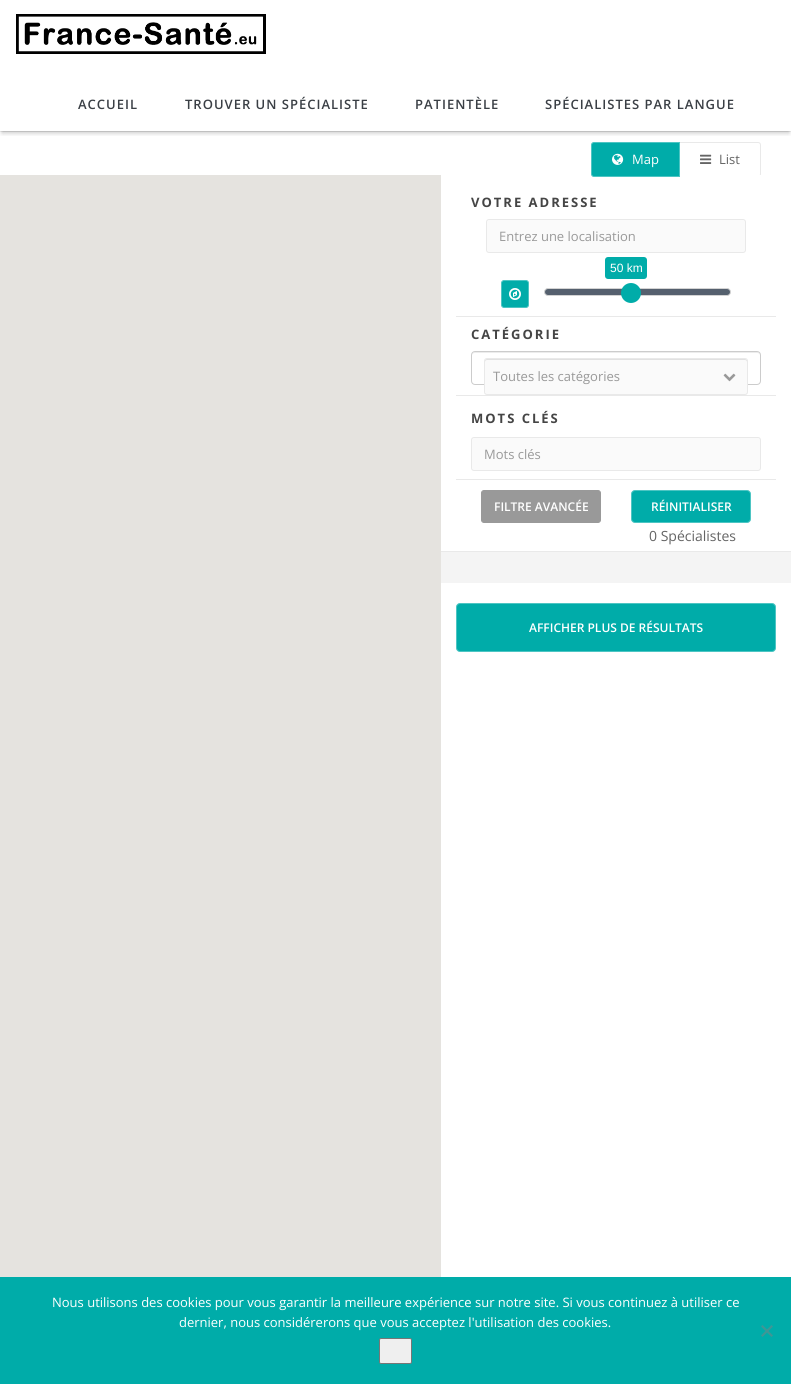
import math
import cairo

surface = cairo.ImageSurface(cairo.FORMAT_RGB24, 791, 1384)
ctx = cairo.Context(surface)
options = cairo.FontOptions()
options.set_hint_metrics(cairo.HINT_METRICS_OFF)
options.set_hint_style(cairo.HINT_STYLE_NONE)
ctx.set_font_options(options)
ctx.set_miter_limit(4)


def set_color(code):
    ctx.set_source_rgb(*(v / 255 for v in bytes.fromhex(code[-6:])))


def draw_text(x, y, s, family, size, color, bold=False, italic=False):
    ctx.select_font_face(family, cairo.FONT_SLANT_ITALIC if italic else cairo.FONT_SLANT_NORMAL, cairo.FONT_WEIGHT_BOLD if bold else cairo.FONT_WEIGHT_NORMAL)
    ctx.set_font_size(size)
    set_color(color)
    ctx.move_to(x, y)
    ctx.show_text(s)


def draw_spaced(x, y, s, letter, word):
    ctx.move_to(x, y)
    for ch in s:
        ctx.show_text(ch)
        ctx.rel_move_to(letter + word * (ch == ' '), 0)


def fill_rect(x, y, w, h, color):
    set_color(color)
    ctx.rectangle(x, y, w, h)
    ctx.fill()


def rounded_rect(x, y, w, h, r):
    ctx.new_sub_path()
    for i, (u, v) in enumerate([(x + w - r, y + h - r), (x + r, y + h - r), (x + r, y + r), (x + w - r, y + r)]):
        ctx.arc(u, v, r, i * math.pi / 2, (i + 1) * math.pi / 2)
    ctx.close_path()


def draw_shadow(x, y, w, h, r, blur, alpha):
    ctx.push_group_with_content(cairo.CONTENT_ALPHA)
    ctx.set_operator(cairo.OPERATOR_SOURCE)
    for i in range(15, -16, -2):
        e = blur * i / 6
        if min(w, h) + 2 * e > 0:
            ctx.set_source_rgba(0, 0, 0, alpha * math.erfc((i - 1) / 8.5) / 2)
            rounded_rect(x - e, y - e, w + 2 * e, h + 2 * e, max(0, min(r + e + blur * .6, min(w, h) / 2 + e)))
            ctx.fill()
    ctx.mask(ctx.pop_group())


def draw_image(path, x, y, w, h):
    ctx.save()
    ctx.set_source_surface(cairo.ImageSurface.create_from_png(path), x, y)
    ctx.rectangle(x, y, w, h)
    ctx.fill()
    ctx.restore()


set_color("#ffffff")
ctx.paint()
fill_rect(0, 131, 791, 1, "#eeeeee")
ctx.save()
ctx.rectangle(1, 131, 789, 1)
ctx.clip()
set_color("#000000")
draw_shadow(1, 3, 789, 129, 0, 0.5, 0.05)
ctx.restore()
ctx.save()
ctx.rectangle(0, 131, 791, 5)
ctx.clip()
set_color("#000000")
draw_shadow(2, 6, 787, 127, 0, 2.5, 0.22)
ctx.restore()
draw_image("assets/img1.png", 16, 14, 250, 40)
ctx.select_font_face("Open Sans SemiBold")
ctx.set_font_size(13)
set_color("#3a3f45")
draw_spaced(78, 109, "ACCUEIL", 1, 0)
draw_spaced(185, 109, "TROUVER UN SPÉCIALISTE", 1, 0)
draw_spaced(415, 109, "PATIENTÈLE", 1, 0)
draw_spaced(545, 109, "SPÉCIALISTES PAR LANGUE", 1, 0)
ctx.new_path()
ctx.move_to(679.5, 142.5)
ctx.line_to(758, 142.5)
ctx.curve_to(759.5, 142.5, 760.5, 143.5, 760.5, 145)
ctx.line_to(760.5, 174)
ctx.curve_to(760.5, 175.5, 759.5, 176.5, 758, 176.5)
ctx.line_to(679.5, 176.5)
ctx.close_path()
set_color("#e9e9e9")
ctx.set_line_width(1)
ctx.stroke()
fill_rect(679, 175, 82, 2, "#ffffff")
set_color("#00aca9")
ctx.new_path()
ctx.move_to(594, 142.5)
ctx.line_to(679.5, 142.5)
ctx.line_to(679.5, 176.5)
ctx.line_to(594, 176.5)
ctx.curve_to(592.5, 176.5, 591.5, 175.5, 591.5, 174)
ctx.line_to(591.5, 145)
ctx.curve_to(591.5, 143.5, 592.5, 142.5, 594, 142.5)
ctx.close_path()
ctx.fill_preserve()
set_color("#4dc5c3")
ctx.stroke()
draw_image("assets/img2.png", 612, 153, 12, 12)
draw_text(632, 164, "Map", "Open Sans", 13, "#ffffff")
draw_image("assets/img3.png", 700, 154, 12, 10)
draw_text(719, 164, "List", "Open Sans", 13, "#646464")
fill_rect(0, 175, 441, 1102, "#e5e3df")
fill_rect(441, 551, 350, 1, "#e9e9e9")
fill_rect(456, 316, 320, 1, "#e9e9e9")
ctx.select_font_face("Open Sans", cairo.FONT_SLANT_NORMAL, cairo.FONT_WEIGHT_BOLD)
set_color("#454545")
draw_spaced(471, 207, "VOTRE ADRESSE", 2, 0)
set_color("#fafafa")
rounded_rect(486.5, 219.5, 259, 33, 2.5)
ctx.fill_preserve()
set_color("#e9e9e9")
ctx.stroke()
draw_text(499, 241, "Entrez une localisation", "Open Sans", 13, "#999999")
set_color("#55606e")
rounded_rect(544.5, 288.5, 186, 7, 3.5)
ctx.fill_preserve()
set_color("#d3d3d3")
ctx.stroke()
set_color("#00aca9")
ctx.arc(631, 293, 10, 0, 2 * math.pi)
ctx.fill()
rounded_rect(605, 257, 42, 22, 3)
ctx.fill()
draw_text(610, 272, "50 km", "Liberation Sans", 12, "#ffffff")
set_color("#00aca9")
rounded_rect(501.5, 280.5, 27, 27, 2.5)
ctx.fill_preserve()
set_color("#4dc5c3")
ctx.stroke()
draw_image("assets/img4.png", 509, 288, 12, 12)
fill_rect(456, 395, 320, 1, "#e9e9e9")
ctx.select_font_face("Open Sans", cairo.FONT_SLANT_NORMAL, cairo.FONT_WEIGHT_BOLD)
ctx.set_font_size(13)
set_color("#454545")
draw_spaced(471, 339, "CATÉGORIE", 2, 0)
set_color("#ececec")
ctx.new_path()
ctx.move_to(475, 353)
ctx.line_to(757, 353)
ctx.curve_to(759, 353, 760, 354, 760, 356)
ctx.curve_to(760, 354, 759, 352, 757, 352)
ctx.line_to(475, 352)
ctx.curve_to(473, 352, 472, 354, 472, 356)
ctx.curve_to(472, 354, 473, 353, 475, 353)
ctx.close_path()
ctx.fill()
rounded_rect(471.5, 351.5, 289, 33, 3.5)
set_color("#cccccc")
ctx.stroke()
set_color("#fafafa")
rounded_rect(484, 358, 264, 37, 3)
ctx.fill()
set_color("#e1e1e1")
ctx.new_path()
ctx.move_to(487, 360)
ctx.line_to(745, 360)
ctx.curve_to(746, 360, 747, 361, 747, 362)
ctx.line_to(747, 361)
ctx.curve_to(747, 360, 746, 359, 745, 359)
ctx.line_to(487, 359)
ctx.curve_to(486, 359, 485, 360, 485, 361)
ctx.line_to(485, 362)
ctx.curve_to(485, 361, 486, 360, 487, 360)
ctx.close_path()
ctx.fill()
rounded_rect(484.5, 358.5, 263, 36, 2.5)
set_color("#e9e9e9")
ctx.stroke()
draw_text(493, 381, "Toutes les catégories", "Open Sans", 13, "#999999")
draw_image("assets/img5.png", 723, 373, 13, 9)
fill_rect(456, 479, 320, 1, "#e9e9e9")
ctx.select_font_face("Open Sans", cairo.FONT_SLANT_NORMAL, cairo.FONT_WEIGHT_BOLD)
set_color("#454545")
draw_spaced(471, 423, "MOTS CLÉS", 2, 0)
set_color("#fafafa")
rounded_rect(471.5, 437.5, 289, 33, 2.5)
ctx.fill_preserve()
set_color("#e9e9e9")
ctx.stroke()
draw_text(484, 459, "Mots clés", "Open Sans", 13, "#999999")
rounded_rect(481.5, 490.5, 119, 32, 2.5)
ctx.fill_preserve()
ctx.stroke()
draw_text(494, 511, "FILTRE AVANCÉE", "Open Sans SemiBold", 12, "#ffffff")
set_color("#00aca9")
rounded_rect(631.5, 490.5, 119, 32, 3.5)
ctx.fill_preserve()
set_color("#4dc5c3")
ctx.stroke()
draw_text(651, 511, "RÉINITIALISER", "Open Sans SemiBold", 12, "#ffffff")
draw_text(649, 541, "0 Spécialistes", "Open Sans", 14, "#646464")
fill_rect(441, 552, 350, 31, "#f4f4f4")
set_color("#00aca9")
rounded_rect(456.5, 603.5, 319, 48, 3.5)
ctx.fill_preserve()
set_color("#4dc5c3")
ctx.stroke()
draw_text(529, 632, "AFFICHER PLUS DE RÉSULTATS", "Open Sans SemiBold", 12, "#ffffff")
fill_rect(0, 1277, 791, 107, "#00aca9")
draw_text(52, 1307, "Nous utilisons des cookies pour vous garantir la meilleure expérience sur notre site. Si vous continuez à utiliser ce", "Open Sans", 13, "#ffffff")
draw_text(179, 1327, "dernier, nous considérerons que vous acceptez l'utilisation des cookies.", "Open Sans", 13, "#ffffff")
set_color("#409695")
ctx.new_path()
ctx.move_to(771.5, 1325)
ctx.line_to(773, 1326.5)
ctx.line_to(762.5, 1337)
ctx.line_to(761, 1335.5)
ctx.close_path()
ctx.fill()
ctx.new_path()
ctx.move_to(761, 1326.5)
ctx.line_to(762.5, 1325)
ctx.line_to(773, 1335.5)
ctx.line_to(771.5, 1337)
ctx.close_path()
ctx.fill()
set_color("#efefef")
rounded_rect(379.5, 1338.5, 32, 25, 1.5)
ctx.fill_preserve()
set_color("#767676")
ctx.stroke()
surface.write_to_png("output.png")
